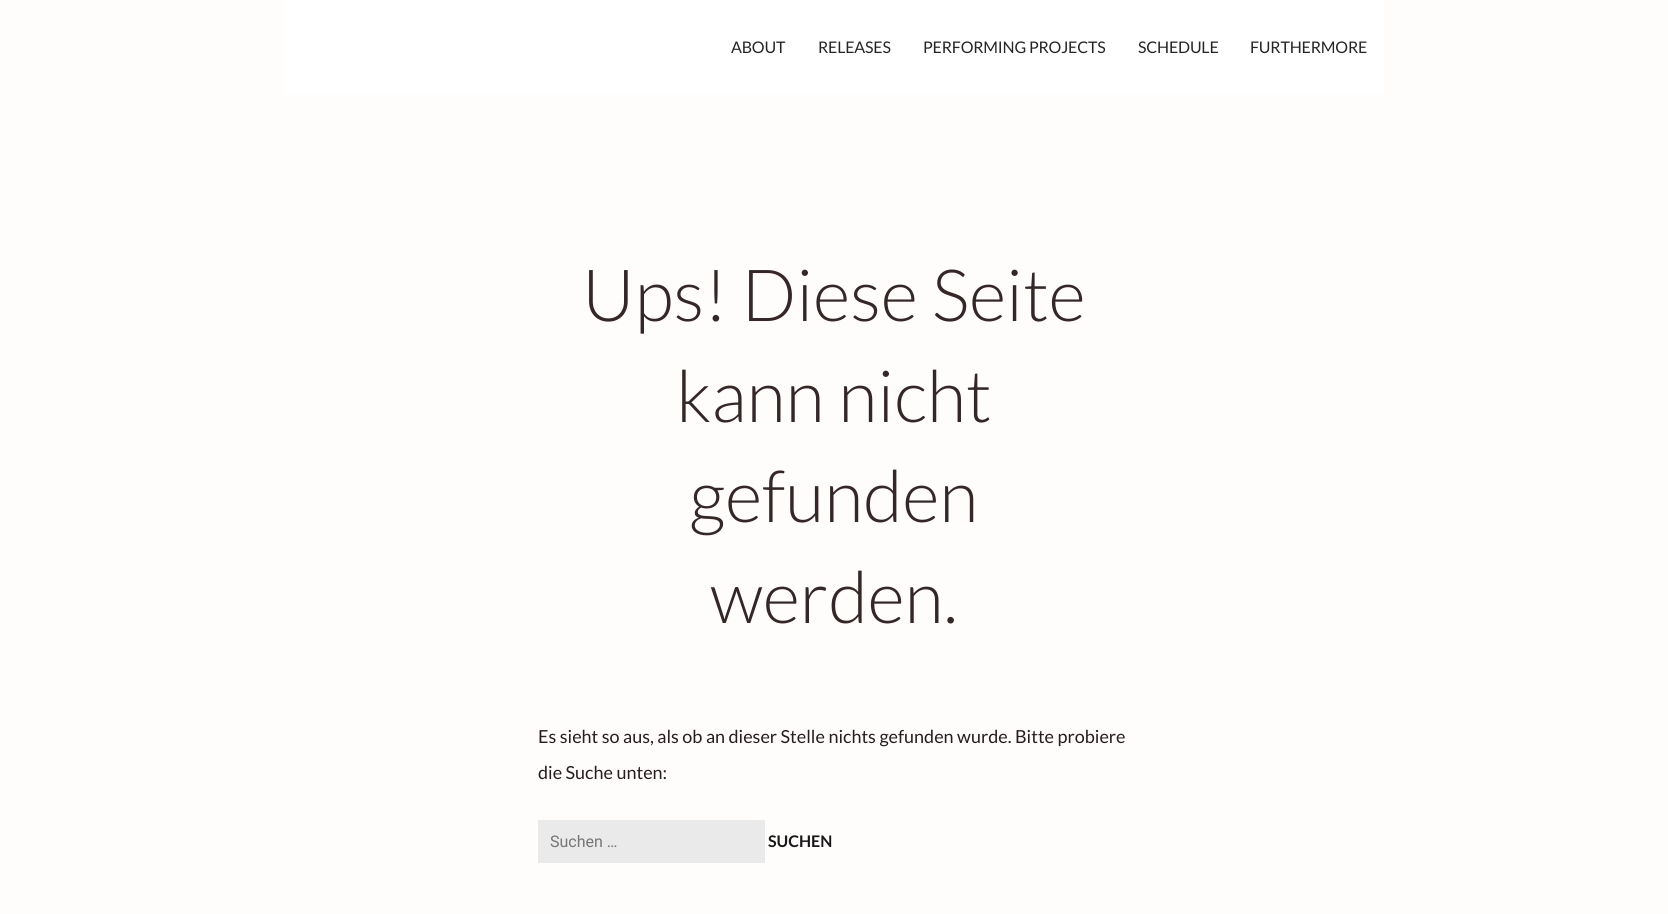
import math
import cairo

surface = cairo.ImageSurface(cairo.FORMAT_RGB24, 1668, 914)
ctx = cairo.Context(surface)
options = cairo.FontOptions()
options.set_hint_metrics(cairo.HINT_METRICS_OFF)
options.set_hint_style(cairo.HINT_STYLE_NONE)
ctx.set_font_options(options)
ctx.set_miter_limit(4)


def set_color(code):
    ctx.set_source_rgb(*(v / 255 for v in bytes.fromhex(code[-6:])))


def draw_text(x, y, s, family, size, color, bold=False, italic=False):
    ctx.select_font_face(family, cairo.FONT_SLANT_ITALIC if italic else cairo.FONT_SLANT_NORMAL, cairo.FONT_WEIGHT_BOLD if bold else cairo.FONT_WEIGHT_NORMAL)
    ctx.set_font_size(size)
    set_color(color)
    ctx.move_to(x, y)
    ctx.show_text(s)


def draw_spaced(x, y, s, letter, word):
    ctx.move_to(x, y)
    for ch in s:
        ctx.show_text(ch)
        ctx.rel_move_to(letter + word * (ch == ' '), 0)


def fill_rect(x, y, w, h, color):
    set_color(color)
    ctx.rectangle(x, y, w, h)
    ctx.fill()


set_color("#fffcfc")
ctx.paint()
fill_rect(284, 0, 1100, 95, "#ffffff")
ctx.select_font_face("Lato")
ctx.set_font_size(16)
set_color("#252525")
draw_spaced(731, 53, "ABOUT", -0.2, 0)
draw_spaced(818, 53, "RELEASES", -0.2, 0)
draw_spaced(923, 53, "PERFORMING PROJECTS", -0.2, 0)
draw_spaced(1138, 53, "SCHEDULE", -0.2, 0)
draw_spaced(1250, 53, "FURTHERMORE", -0.2, 0)
draw_text(582, 321, "Ups! Diese Seite", "Lato Light", 72, "#352727")
draw_text(676, 422, "kann nicht", "Lato Light", 72, "#352727")
draw_text(689, 522, "gefunden", "Lato Light", 72, "#352727")
draw_text(710, 623, "werden.", "Lato Light", 72, "#352727")
draw_text(538, 743, "Es sieht so aus, als ob an dieser Stelle nichts gefunden wurde. Bitte probiere", "Lato", 18, "#261d1d")
draw_text(538, 779, "die Suche unten:", "Lato", 18, "#261d1d")
fill_rect(538, 820, 227, 43, "#eaeaea")
draw_text(550, 847, "Suchen …", "Roboto", 16, "#757575")
draw_text(768, 847, "SUCHEN", "Lato", 16, "#181818", bold=True)
surface.write_to_png("output.png")
